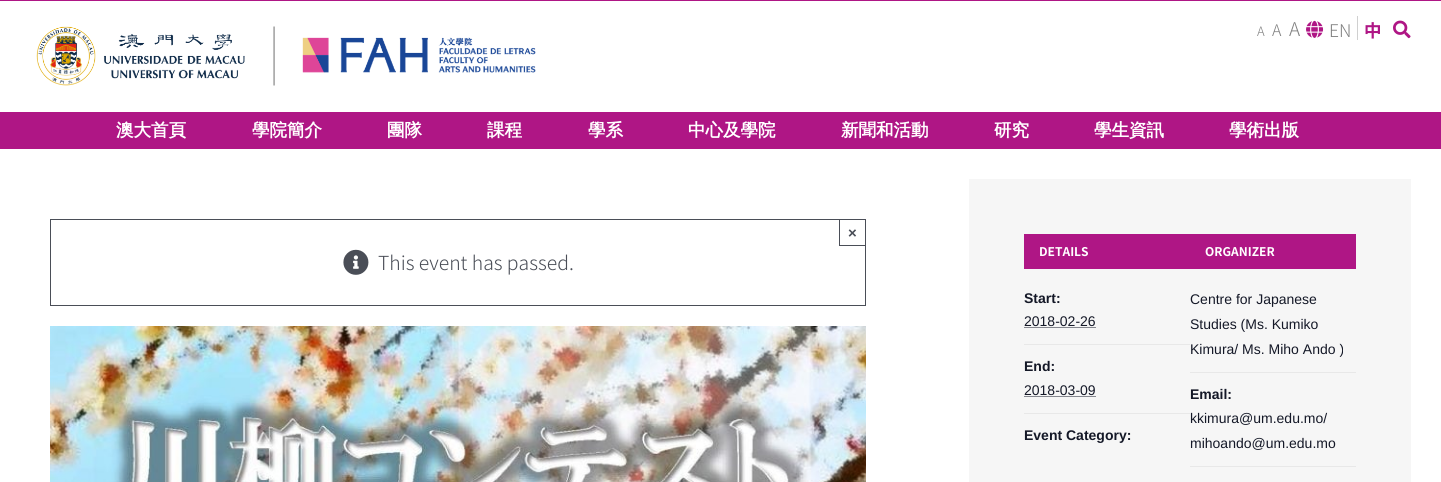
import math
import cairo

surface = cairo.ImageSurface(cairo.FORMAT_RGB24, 1441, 482)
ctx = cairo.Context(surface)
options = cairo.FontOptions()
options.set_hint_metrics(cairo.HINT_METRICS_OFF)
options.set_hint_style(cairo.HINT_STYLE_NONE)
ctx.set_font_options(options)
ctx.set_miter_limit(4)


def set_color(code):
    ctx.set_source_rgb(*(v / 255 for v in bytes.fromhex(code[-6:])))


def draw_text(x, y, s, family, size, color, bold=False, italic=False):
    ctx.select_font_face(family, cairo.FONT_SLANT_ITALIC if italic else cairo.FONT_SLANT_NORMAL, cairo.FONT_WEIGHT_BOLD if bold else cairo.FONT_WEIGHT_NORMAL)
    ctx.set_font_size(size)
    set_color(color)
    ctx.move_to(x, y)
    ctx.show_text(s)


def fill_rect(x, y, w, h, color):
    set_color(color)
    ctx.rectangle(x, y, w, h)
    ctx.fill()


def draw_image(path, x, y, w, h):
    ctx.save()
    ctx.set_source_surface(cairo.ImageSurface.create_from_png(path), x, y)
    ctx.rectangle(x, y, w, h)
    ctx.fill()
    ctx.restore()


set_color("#ffffff")
ctx.paint()
fill_rect(0, 0, 1441, 1, "#af1685")
draw_image("assets/img1.png", 36, 26, 500, 60)
draw_text(1257, 36, "A", "Noto Sans TC Light", 13, "#808080")
draw_text(1272, 36, "A", "Noto Sans TC Light", 16, "#808080")
draw_text(1289, 36, "A", "Noto Sans TC Light", 19, "#808080")
draw_image("assets/img2.png", 1306, 20, 18, 18)
fill_rect(1357, 16, 1, 24, "#d0d0d0")
draw_text(1329, 37, "EN", "Noto Sans TC Light", 17.5, "#808080")
draw_text(1364, 37, "中", "Noto Sans TC", 17.5, "#af1685", bold=True)
draw_image("assets/img3.png", 1393, 20, 18, 19)
fill_rect(0, 112, 1441, 37, "#af1685")
draw_text(116, 136, "澳大首頁", "WenQuanYi Zen Hei", 17.5, "#ffffff", bold=True)
draw_text(252, 136, "學院簡介", "WenQuanYi Zen Hei", 17.5, "#ffffff", bold=True)
draw_text(387, 136, "團隊", "WenQuanYi Zen Hei", 17.5, "#ffffff", bold=True)
draw_text(487, 136, "課程", "WenQuanYi Zen Hei", 17.5, "#ffffff", bold=True)
draw_text(588, 136, "學系", "WenQuanYi Zen Hei", 17.5, "#ffffff", bold=True)
draw_text(688, 136, "中心及學院", "WenQuanYi Zen Hei", 17.5, "#ffffff", bold=True)
draw_text(841, 136, "新聞和活動", "WenQuanYi Zen Hei", 17.5, "#ffffff", bold=True)
draw_text(994, 136, "研究", "WenQuanYi Zen Hei", 17.5, "#ffffff", bold=True)
draw_text(1094, 136, "學生資訊", "WenQuanYi Zen Hei", 17.5, "#ffffff", bold=True)
draw_text(1229, 136, "學術出版", "WenQuanYi Zen Hei", 17.5, "#ffffff", bold=True)
ctx.rectangle(50.5, 219.5, 815, 86)
set_color("#4a4e57")
ctx.set_line_width(1)
ctx.stroke()
ctx.rectangle(839.5, 219.5, 26, 26)
ctx.stroke()
draw_text(848, 238, "×", "Liberation Sans", 15, "#4a4e57", bold=True)
draw_image("assets/img4.png", 343, 249, 26, 26)
draw_text(378, 270, "This event has passed.", "Noto Sans TC Light", 19.4, "#4a4e57")
draw_image("assets/img5.png", 50, 326, 816, 156)
fill_rect(969, 179, 442, 303, "#f6f6f6")
fill_rect(1024, 234, 332, 35, "#af1685")
draw_text(1039, 256, "DETAILS", "Noto Sans TC", 12, "#ffffff", bold=True)
draw_text(1024, 303, "Start:", "Liberation Sans", 14, "#141827", bold=True)
fill_rect(1024, 344, 166, 1, "#e8e8e8")
draw_text(1024, 326, "2018-02-26", "Liberation Sans", 14, "#141827")
ctx.new_path()
ctx.move_to(1024.5, 327.5)
ctx.line_to(1096, 327.5)
ctx.set_dash([1, 1])
ctx.stroke()
draw_text(1024, 371, "End:", "Liberation Sans", 14, "#141827", bold=True)
fill_rect(1024, 413, 166, 1, "#e8e8e8")
draw_text(1024, 395, "2018-03-09", "Liberation Sans", 14, "#141827")
ctx.new_path()
ctx.move_to(1024.5, 396.5)
ctx.line_to(1096, 396.5)
ctx.stroke()
draw_text(1024, 440, "Event Category:", "Liberation Sans", 14, "#141827", bold=True)
draw_text(1205, 256, "ORGANIZER", "Noto Sans TC", 12, "#ffffff", bold=True)
fill_rect(1190, 372, 166, 1, "#e8e8e8")
draw_text(1190, 304, "Centre for Japanese", "Liberation Sans", 14, "#141827")
draw_text(1190, 329, "Studies (Ms. Kumiko", "Liberation Sans", 14, "#141827")
draw_text(1190, 354, "Kimura/ Ms. Miho Ando )", "Liberation Sans", 14, "#141827")
draw_text(1190, 399, "Email:", "Liberation Sans", 14, "#141827", bold=True)
fill_rect(1190, 466, 166, 1, "#e8e8e8")
draw_text(1190, 423, "kkimura@um.edu.mo/", "Liberation Sans", 14, "#141827")
draw_text(1190, 448, "mihoando@um.edu.mo", "Liberation Sans", 14, "#141827")
surface.write_to_png("output.png")
